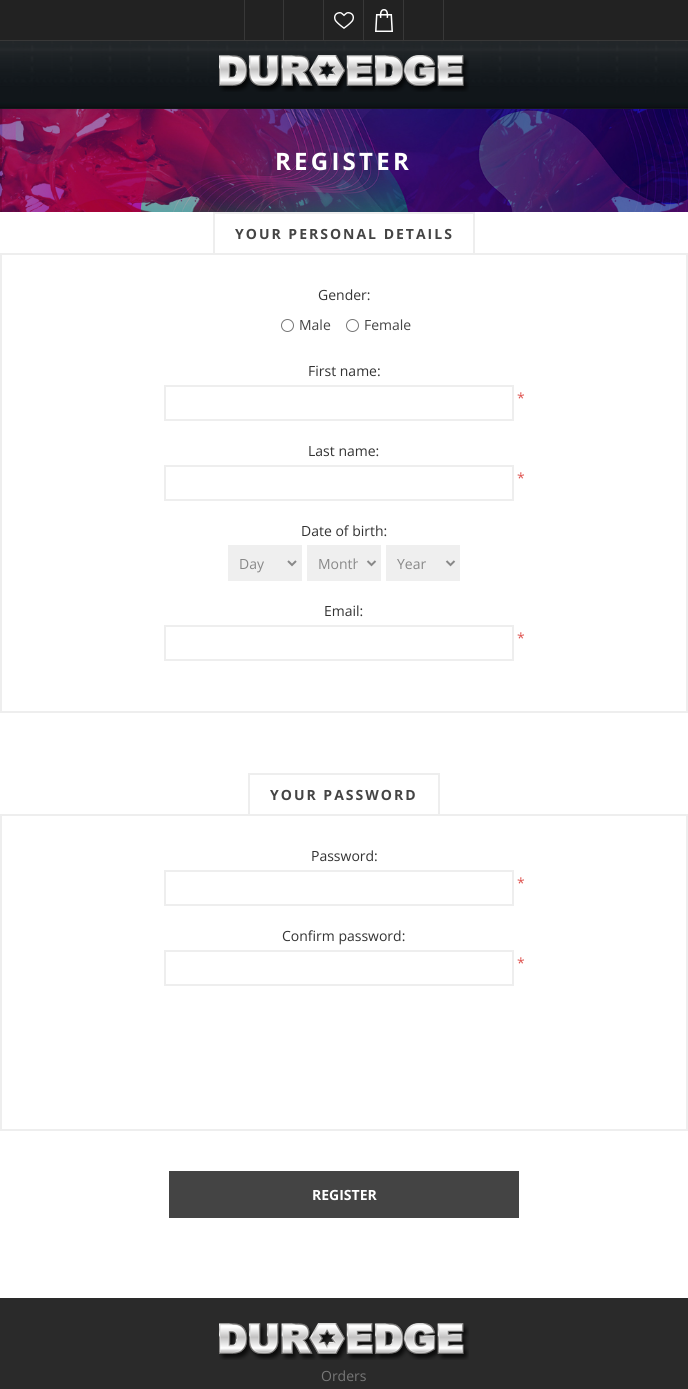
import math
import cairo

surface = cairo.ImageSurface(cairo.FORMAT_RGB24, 688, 1389)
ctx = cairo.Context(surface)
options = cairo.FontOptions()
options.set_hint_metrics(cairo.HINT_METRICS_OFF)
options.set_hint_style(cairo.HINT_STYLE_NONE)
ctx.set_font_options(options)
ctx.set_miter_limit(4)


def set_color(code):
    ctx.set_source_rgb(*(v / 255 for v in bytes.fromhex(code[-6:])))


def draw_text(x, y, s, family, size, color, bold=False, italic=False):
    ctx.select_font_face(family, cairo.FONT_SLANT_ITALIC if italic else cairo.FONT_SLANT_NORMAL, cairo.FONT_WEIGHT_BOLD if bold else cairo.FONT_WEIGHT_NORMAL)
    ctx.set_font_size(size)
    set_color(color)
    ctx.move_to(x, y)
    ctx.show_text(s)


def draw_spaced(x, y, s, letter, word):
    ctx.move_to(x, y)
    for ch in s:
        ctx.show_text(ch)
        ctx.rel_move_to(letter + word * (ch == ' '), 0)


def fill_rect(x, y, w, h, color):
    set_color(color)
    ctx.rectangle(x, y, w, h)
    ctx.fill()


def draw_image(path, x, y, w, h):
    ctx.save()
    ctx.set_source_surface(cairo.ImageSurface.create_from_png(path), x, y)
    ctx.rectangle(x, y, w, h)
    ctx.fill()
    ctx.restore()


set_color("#ffffff")
ctx.paint()
fill_rect(0, 0, 688, 40, "#222222")
fill_rect(0, 40, 688, 1, "#383838")
fill_rect(283, 0, 1, 40, "#383838")
fill_rect(244, 0, 1, 40, "#383838")
fill_rect(323, 0, 1, 40, "#383838")
draw_image("assets/img1.png", 334, 12, 20, 17)
fill_rect(363, 0, 1, 40, "#383838")
draw_image("assets/img2.png", 375, 9, 18, 23)
fill_rect(403, 0, 1, 40, "#383838")
fill_rect(443, 0, 1, 40, "#383838")
draw_image("assets/img3.png", 0, 41, 688, 68)
draw_image("assets/img4.png", 219, 55, 250, 37)
draw_image("assets/img5.png", 0, 109, 688, 103)
ctx.select_font_face("Open Sans", cairo.FONT_SLANT_NORMAL, cairo.FONT_WEIGHT_BOLD)
ctx.set_font_size(24)
set_color("#ffffff")
draw_spaced(275, 170, "REGISTER", 3.25, 0)
ctx.rectangle(1, 254, 686, 458)
set_color("#eeeeee")
ctx.stroke()
ctx.rectangle(214, 213, 260, 41)
ctx.stroke()
ctx.set_font_size(14)
set_color("#444444")
draw_spaced(235, 239, "YOUR PERSONAL DETAILS", 2, 0)
draw_text(318, 300, "Gender:", "Open Sans", 14, "#333333")
ctx.new_path()
ctx.arc(287.5, 325.5, 6, 0, 2 * math.pi)
set_color("#767676")
ctx.set_line_width(1)
ctx.stroke()
draw_text(299, 330, "Male", "Open Sans", 14, "#444444")
ctx.new_path()
ctx.arc(352.5, 325.5, 6, 0, 2 * math.pi)
set_color("#767676")
ctx.stroke()
draw_text(364, 330, "Female", "Open Sans", 14, "#444444")
draw_text(308, 376, "First name:", "Open Sans", 14, "#333333")
ctx.rectangle(165, 386, 348, 34)
set_color("#eeeeee")
ctx.set_line_width(2)
ctx.stroke()
draw_text(517, 403, "*", "Open Sans", 14, "#de524e")
draw_text(308, 456, "Last name:", "Open Sans", 14, "#333333")
ctx.rectangle(165, 466, 348, 34)
set_color("#eeeeee")
ctx.stroke()
draw_text(517, 483, "*", "Open Sans", 14, "#de524e")
draw_text(301, 536, "Date of birth:", "Open Sans", 14, "#333333")
fill_rect(228, 545, 74, 36, "#efefef")
ctx.new_path()
ctx.move_to(288, 561)
ctx.line_to(292, 565)
ctx.line_to(296, 561)
set_color("#888888")
ctx.stroke()
draw_text(239, 569, "Day", "Open Sans", 14, "#888888")
fill_rect(307, 545, 74, 36, "#efefef")
ctx.new_path()
ctx.move_to(367.5, 561)
ctx.line_to(371.5, 565)
ctx.line_to(375.5, 561)
set_color("#888888")
ctx.stroke()
ctx.save()
ctx.rectangle(318, 553, 40, 21)
ctx.clip()
draw_text(318, 569, "Month", "Open Sans", 14, "#888888")
ctx.restore()
fill_rect(386, 545, 74, 36, "#efefef")
ctx.new_path()
ctx.move_to(446.5, 561)
ctx.line_to(450.5, 565)
ctx.line_to(454.5, 561)
set_color("#888888")
ctx.stroke()
draw_text(397, 569, "Year", "Open Sans", 14, "#888888")
draw_text(324, 616, "Email:", "Open Sans", 14, "#333333")
ctx.rectangle(165, 626, 348, 34)
set_color("#eeeeee")
ctx.stroke()
draw_text(517, 643, "*", "Open Sans", 14, "#de524e")
ctx.rectangle(1, 815, 686, 315)
set_color("#eeeeee")
ctx.stroke()
ctx.rectangle(249, 774, 190, 41)
ctx.stroke()
ctx.select_font_face("Open Sans", cairo.FONT_SLANT_NORMAL, cairo.FONT_WEIGHT_BOLD)
set_color("#444444")
draw_spaced(270, 800, "YOUR PASSWORD", 2, 0)
draw_text(311, 861, "Password:", "Open Sans", 14, "#333333")
ctx.rectangle(165, 871, 348, 34)
set_color("#eeeeee")
ctx.stroke()
draw_text(517, 888, "*", "Open Sans", 14, "#de524e")
draw_text(282, 941, "Confirm password:", "Open Sans", 14, "#333333")
ctx.rectangle(165, 951, 348, 34)
set_color("#eeeeee")
ctx.stroke()
draw_text(517, 968, "*", "Open Sans", 14, "#de524e")
fill_rect(169, 1171, 350, 47, "#444444")
draw_text(312, 1200, "REGISTER", "Open Sans", 14, "#ffffff", bold=True)
fill_rect(0, 1298, 688, 91, "#2a2a2a")
draw_image("assets/img6.png", 219, 1323, 250, 37)
draw_text(321, 1381, "Orders", "Open Sans", 14, "#777777")
surface.write_to_png("output.png")
